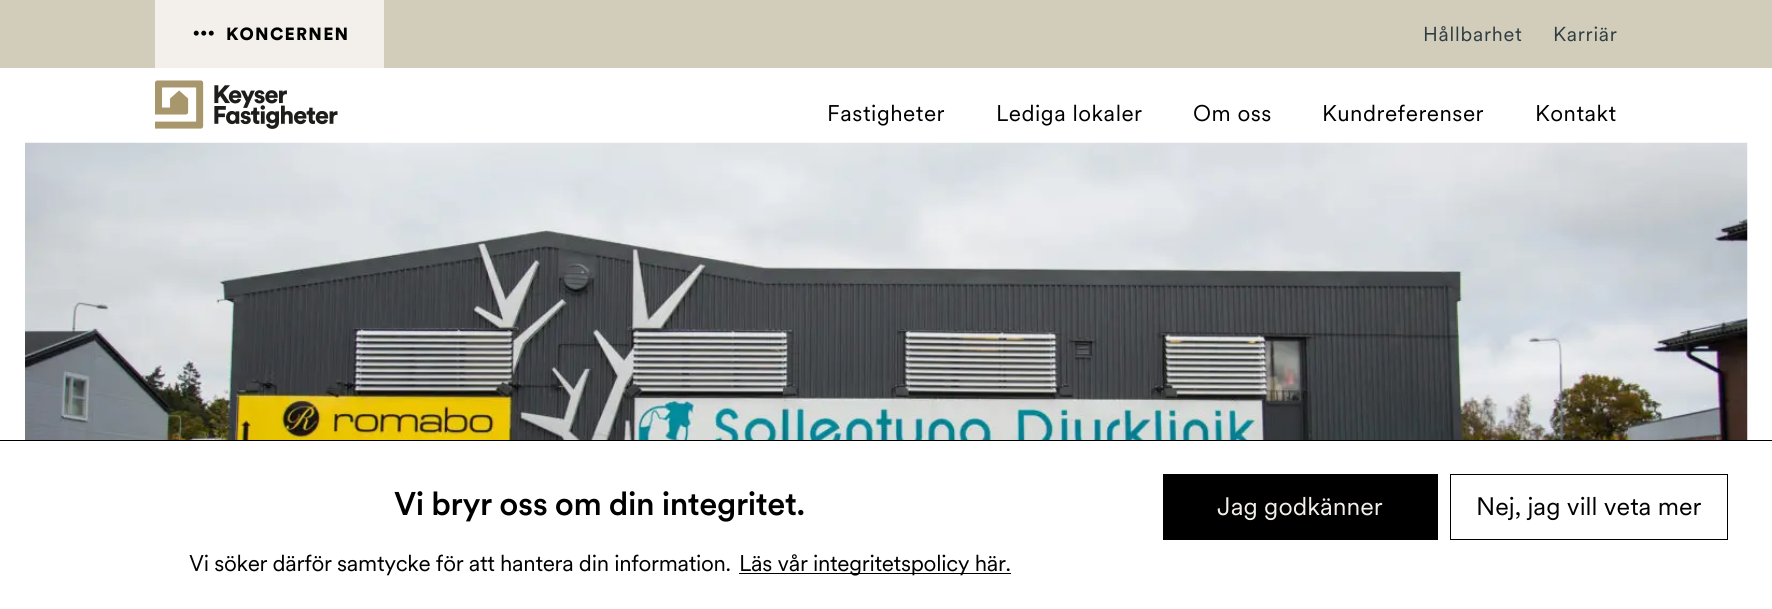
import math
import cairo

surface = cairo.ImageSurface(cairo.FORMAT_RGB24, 1772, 609)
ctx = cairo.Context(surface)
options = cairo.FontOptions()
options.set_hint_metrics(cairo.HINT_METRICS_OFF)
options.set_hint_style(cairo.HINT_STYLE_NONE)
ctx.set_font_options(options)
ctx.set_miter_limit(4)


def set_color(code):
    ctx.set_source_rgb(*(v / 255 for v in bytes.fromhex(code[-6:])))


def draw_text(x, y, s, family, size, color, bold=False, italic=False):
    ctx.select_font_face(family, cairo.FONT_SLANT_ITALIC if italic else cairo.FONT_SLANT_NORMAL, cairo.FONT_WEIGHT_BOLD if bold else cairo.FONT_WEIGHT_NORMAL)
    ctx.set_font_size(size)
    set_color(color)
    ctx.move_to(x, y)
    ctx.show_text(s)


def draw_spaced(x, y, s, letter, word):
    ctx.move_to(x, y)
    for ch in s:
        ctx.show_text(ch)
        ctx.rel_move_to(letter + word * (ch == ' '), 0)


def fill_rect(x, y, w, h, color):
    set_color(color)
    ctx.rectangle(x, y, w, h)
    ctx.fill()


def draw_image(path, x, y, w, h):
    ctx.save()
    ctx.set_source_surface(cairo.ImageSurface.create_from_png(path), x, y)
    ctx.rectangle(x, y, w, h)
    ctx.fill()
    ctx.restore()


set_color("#ffffff")
ctx.paint()
fill_rect(0, 0, 1772, 68, "#d2ccbb")
fill_rect(155, 0, 229, 68, "#f3f0eb")
draw_image("assets/img1.png", 193, 30, 21, 6)
ctx.select_font_face("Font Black")
ctx.set_font_size(17.5)
set_color("#000000")
draw_spaced(226, 40, "KONCERNEN", 1.25, 0)
ctx.select_font_face("Font")
ctx.set_font_size(20)
set_color("#2e3d41")
draw_spaced(1423, 41, "Hållbarhet", 0.75, 0)
draw_spaced(1553, 41, "Karriär", 0.75, 0)
draw_image("assets/img2.png", 155, 80, 183, 49)
ctx.set_font_size(22.5)
set_color("#000000")
draw_spaced(827, 121, "Fastigheter", 0.5, 0)
draw_spaced(996, 121, "Lediga lokaler", 0.5, 0)
draw_spaced(1193, 121, "Om oss", 0.5, 0)
draw_spaced(1322, 121, "Kundreferenser", 0.5, 0)
draw_spaced(1535, 121, "Kontakt", 0.5, 0)
draw_image("assets/img3.png", 25, 142, 1723, 298)
fill_rect(0, 440, 1772, 1, "#000000")
ctx.select_font_face("Font Medium")
ctx.set_font_size(32.5)
draw_spaced(394, 515, "Vi bryr oss om din integritet.", -0.4, 0)
ctx.select_font_face("Font")
ctx.set_font_size(22.5)
draw_spaced(189, 571, "Vi söker därför samtycke för att hantera din information.", -0.3, 0)
fill_rect(739, 573, 272, 1, "#000000")
draw_spaced(739, 571, "Läs vår integritetspolicy här.", -0.3, 0)
fill_rect(1163, 474, 275, 66, "#000000")
draw_text(1217, 515, "Jag godkänner", "Font", 25, "#f3f0eb")
ctx.rectangle(1450.5, 474.5, 277, 65)
set_color("#000000")
ctx.set_line_width(1)
ctx.stroke()
draw_text(1476, 515, "Nej, jag vill veta mer", "Font", 25, "#000000")
surface.write_to_png("output.png")
